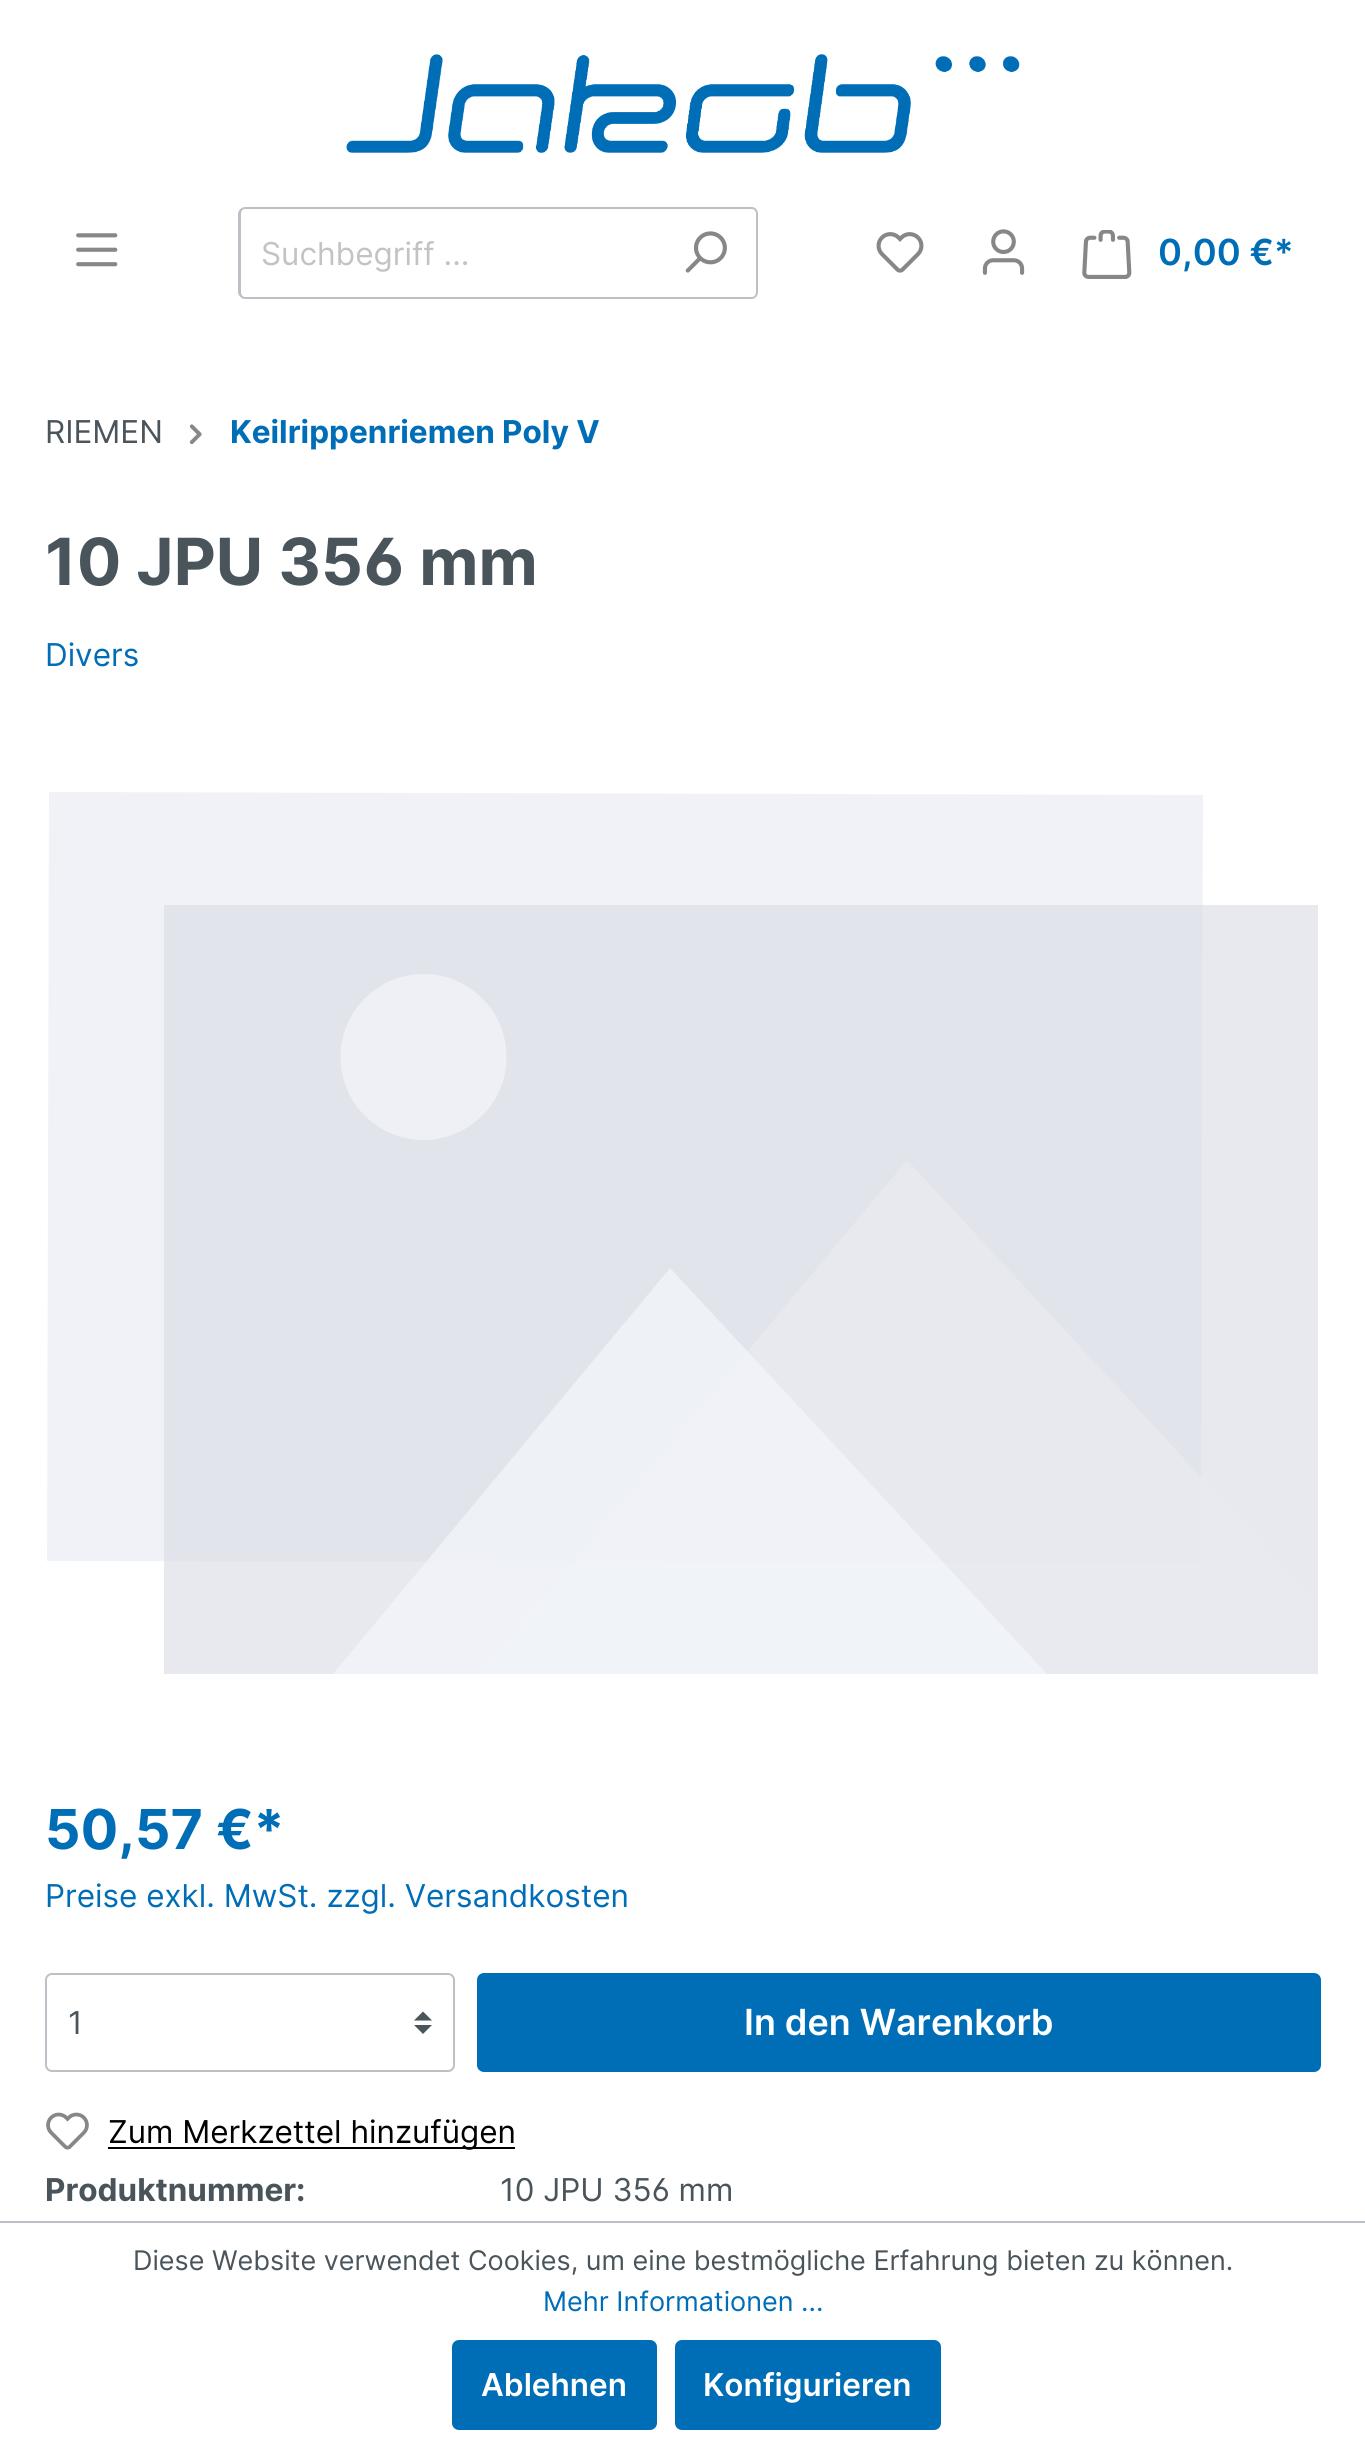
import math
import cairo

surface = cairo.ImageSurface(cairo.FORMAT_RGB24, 1365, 2447)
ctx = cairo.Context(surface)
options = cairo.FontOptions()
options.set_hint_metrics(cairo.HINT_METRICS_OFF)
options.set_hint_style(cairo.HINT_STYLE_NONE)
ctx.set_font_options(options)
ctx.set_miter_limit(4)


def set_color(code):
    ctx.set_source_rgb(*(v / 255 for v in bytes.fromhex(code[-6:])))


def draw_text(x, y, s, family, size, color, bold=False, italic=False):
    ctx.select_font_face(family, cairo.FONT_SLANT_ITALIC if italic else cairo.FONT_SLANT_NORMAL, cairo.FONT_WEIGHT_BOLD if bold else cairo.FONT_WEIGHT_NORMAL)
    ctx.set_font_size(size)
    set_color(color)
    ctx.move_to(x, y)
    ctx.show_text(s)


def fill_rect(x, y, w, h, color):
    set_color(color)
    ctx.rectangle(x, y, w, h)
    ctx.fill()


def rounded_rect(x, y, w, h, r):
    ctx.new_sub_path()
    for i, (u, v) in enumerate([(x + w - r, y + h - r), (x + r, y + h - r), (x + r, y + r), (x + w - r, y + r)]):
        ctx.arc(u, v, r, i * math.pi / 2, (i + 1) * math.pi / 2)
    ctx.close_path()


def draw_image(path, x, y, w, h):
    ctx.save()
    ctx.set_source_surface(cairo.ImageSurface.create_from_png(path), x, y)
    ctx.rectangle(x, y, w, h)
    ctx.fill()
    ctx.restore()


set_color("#ffffff")
ctx.paint()
draw_image("assets/img1.png", 346, 54, 674, 99)
draw_image("assets/img2.png", 76, 233, 42, 34)
set_color("#bcc1c7")
ctx.set_fill_rule(cairo.FILL_RULE_EVEN_ODD)
ctx.new_path()
ctx.move_to(245, 207)
ctx.line_to(655, 207)
ctx.line_to(655, 299)
ctx.line_to(245, 299)
ctx.curve_to(242, 299, 238, 296, 238, 292)
ctx.line_to(238, 214)
ctx.curve_to(238, 210, 242, 207, 245, 207)
ctx.close_path()
ctx.move_to(245, 209)
ctx.line_to(655, 209)
ctx.line_to(655, 297)
ctx.line_to(245, 297)
ctx.curve_to(243, 297, 241, 295, 241, 292)
ctx.line_to(241, 214)
ctx.curve_to(241, 211, 243, 209, 245, 209)
ctx.close_path()
ctx.fill()
draw_text(261, 265, "Suchbegriff ...", "Inter", 31.5, "#c3c3c3")
set_color("#ffffff")
ctx.new_path()
ctx.move_to(653, 207)
ctx.line_to(751, 207)
ctx.curve_to(755, 207, 758, 210, 758, 214)
ctx.line_to(758, 292)
ctx.curve_to(758, 296, 755, 299, 751, 299)
ctx.line_to(653, 299)
ctx.close_path()
ctx.fill()
set_color("#bcc1c7")
ctx.new_path()
ctx.move_to(652, 207)
ctx.line_to(752, 207)
ctx.curve_to(755, 207, 758, 210, 758, 214)
ctx.line_to(758, 292)
ctx.curve_to(758, 296, 755, 299, 752, 299)
ctx.line_to(652, 299)
ctx.close_path()
ctx.move_to(652, 209)
ctx.line_to(752, 209)
ctx.curve_to(754, 209, 756, 211, 756, 214)
ctx.line_to(756, 292)
ctx.curve_to(756, 295, 754, 297, 752, 297)
ctx.line_to(652, 297)
ctx.close_path()
ctx.fill()
draw_image("assets/img3.png", 685, 231, 42, 42)
draw_image("assets/img4.png", 876, 232, 48, 41)
draw_image("assets/img5.png", 982, 229, 43, 46)
draw_image("assets/img6.png", 1082, 230, 50, 49)
draw_text(1158, 265, "0,00 €*", "Inter SemiBold", 36, "#006db7")
draw_text(45, 443, "RIEMEN", "Inter", 31.5, "#4a545b")
draw_image("assets/img7.png", 189, 424, 13, 20)
draw_text(230, 443, "Keilrippenriemen Poly V", "Inter", 31.5, "#006db7", bold=True)
draw_text(45, 585, "10 JPU 356 mm", "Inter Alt", 65, "#4a545b", bold=True)
draw_text(45, 666, "Divers", "Inter", 31.5, "#006db7")
set_color("#f1f2f7")
ctx.set_fill_rule(cairo.FILL_RULE_WINDING)
ctx.new_path()
ctx.move_to(47, 1561)
ctx.line_to(49, 792)
ctx.line_to(1203, 795)
ctx.line_to(1201, 1564)
ctx.close_path()
ctx.fill()
ctx.set_source_rgba(0.855, 0.867, 0.898, 0.65)
ctx.rectangle(164, 905, 1154, 769)
ctx.fill()
ctx.set_source_rgba(0.914, 0.922, 0.949, 0.65)
ctx.set_fill_rule(cairo.FILL_RULE_EVEN_ODD)
ctx.new_path()
ctx.move_to(479, 1674)
ctx.line_to(1318, 1674)
ctx.line_to(1318, 1603)
ctx.line_to(907, 1160)
ctx.close_path()
ctx.fill()
set_color("#eef0f6")
ctx.arc(423.5, 1057, 83, 0, 2 * math.pi)
ctx.fill()
ctx.set_source_rgba(0.961, 0.969, 0.988, 0.65)
ctx.new_path()
ctx.move_to(670, 1268)
ctx.line_to(333, 1674)
ctx.line_to(1047, 1674)
ctx.close_path()
ctx.fill()
draw_text(45, 1849, "50,57 €*", "Inter", 55, "#006db7", bold=True)
draw_text(45, 1907, "Preise exkl. MwSt. zzgl. Versandkosten", "Inter", 31.5, "#006db7")
set_color("#4a545b")
ctx.set_fill_rule(cairo.FILL_RULE_WINDING)
ctx.new_path()
ctx.move_to(423, 2011.5)
ctx.line_to(414, 2020.5)
ctx.line_to(432, 2020.5)
ctx.close_path()
ctx.move_to(423, 2034)
ctx.line_to(414, 2025)
ctx.line_to(432, 2025)
ctx.close_path()
ctx.fill()
rounded_rect(46, 1974, 408, 97, 6)
set_color("#bcc1c7")
ctx.stroke()
draw_text(68, 2034, "1", "Inter", 31.5, "#4a545b")
set_color("#006eb7")
rounded_rect(478, 1974, 842, 97, 6)
ctx.fill_preserve()
ctx.stroke()
draw_text(744, 2035, "In den Warenkorb", "Inter SemiBold", 36, "#ffffff")
draw_image("assets/img8.png", 46, 2112, 43, 38)
fill_rect(108, 2147, 407, 2, "#000000")
draw_text(108, 2143, "Zum Merkzettel hinzufügen", "Inter", 31.5, "#000000")
draw_text(45, 2201, "Produktnummer:", "Inter", 31.5, "#4a545b", bold=True)
draw_text(500, 2201, "10 JPU 356 mm", "Inter Alt", 31.5, "#4a545b")
fill_rect(0, 2221, 1365, 2, "#bcc1c7")
draw_text(133, 2270, "Diese Website verwendet Cookies, um eine bestmögliche Erfahrung bieten zu können.", "Inter", 27, "#4a545b")
draw_text(543, 2311, "Mehr Informationen ...", "Inter", 27, "#006db7")
rounded_rect(453, 2341, 203, 88, 6)
ctx.fill_preserve()
ctx.stroke()
draw_text(481, 2396, "Ablehnen", "Inter SemiBold", 31.5, "#ffffff")
set_color("#006db7")
rounded_rect(676, 2341, 264, 88, 6)
ctx.fill_preserve()
ctx.stroke()
draw_text(703, 2396, "Konfigurieren", "Inter SemiBold", 31.5, "#ffffff")
surface.write_to_png("output.png")
